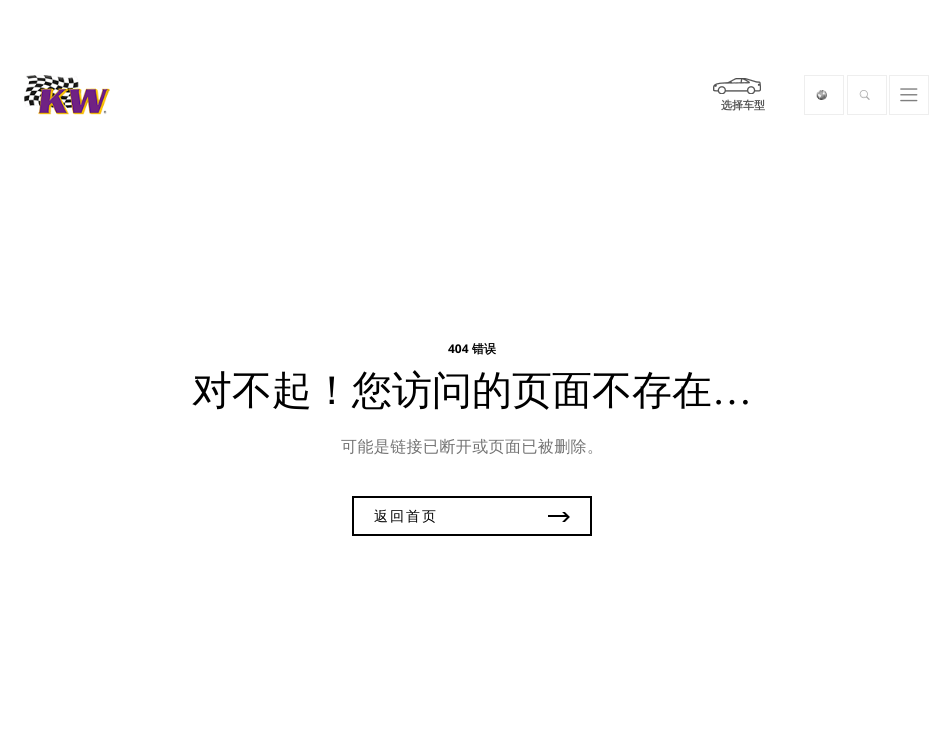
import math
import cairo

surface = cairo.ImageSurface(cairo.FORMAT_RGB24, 944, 755)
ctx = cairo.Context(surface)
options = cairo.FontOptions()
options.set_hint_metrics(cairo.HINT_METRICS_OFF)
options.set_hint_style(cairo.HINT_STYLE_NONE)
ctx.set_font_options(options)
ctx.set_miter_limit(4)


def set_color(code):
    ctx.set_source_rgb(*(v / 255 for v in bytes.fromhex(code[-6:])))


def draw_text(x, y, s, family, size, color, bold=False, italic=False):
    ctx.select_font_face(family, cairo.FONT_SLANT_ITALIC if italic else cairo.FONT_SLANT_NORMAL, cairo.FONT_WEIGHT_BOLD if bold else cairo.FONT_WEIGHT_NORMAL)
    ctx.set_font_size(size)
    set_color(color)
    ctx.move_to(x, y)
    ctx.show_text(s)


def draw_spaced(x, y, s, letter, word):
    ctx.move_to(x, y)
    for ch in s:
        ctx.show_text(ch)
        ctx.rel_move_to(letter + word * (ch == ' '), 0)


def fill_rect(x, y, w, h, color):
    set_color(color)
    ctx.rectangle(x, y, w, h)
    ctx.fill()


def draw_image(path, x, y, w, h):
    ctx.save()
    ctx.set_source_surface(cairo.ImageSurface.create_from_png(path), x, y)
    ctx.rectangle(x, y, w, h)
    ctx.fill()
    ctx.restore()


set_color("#ffffff")
ctx.paint()
draw_image("assets/img1.png", 24, 75, 86, 40)
draw_image("assets/img2.png", 713, 78, 48, 16)
draw_text(721, 109, "选择车型", "WenQuanYi Zen Hei", 11, "#545454", bold=True)
ctx.rectangle(804.5, 75.5, 39, 39)
set_color("#eeeeee")
ctx.set_line_width(1)
ctx.stroke()
draw_image("assets/img3.png", 816, 90, 11, 10)
ctx.rectangle(847.5, 75.5, 39, 39)
ctx.stroke()
draw_image("assets/img4.png", 859, 90, 11, 10)
ctx.rectangle(889.5, 75.5, 39, 39)
ctx.stroke()
draw_image("assets/img5.png", 900, 88, 18, 14)
draw_text(448, 353, "404", "Open Sans", 12, "#000000", bold=True)
draw_text(472, 353, "错误", "WenQuanYi Zen Hei", 12, "#000000", bold=True)
draw_text(192, 404, "对不起！您访问的页面不存在", "WenQuanYi Zen Hei Medium", 40, "#000000")
draw_text(712, 404, "…", "Liberation Serif", 40, "#000000")
ctx.select_font_face("WenQuanYi Zen Hei Medium")
ctx.set_font_size(16)
set_color("#737373")
draw_spaced(341, 452, "可能是链接已断开或页面已被删除。", 0.4, 0)
ctx.rectangle(353, 497, 238, 38)
set_color("#000000")
ctx.set_line_width(2)
ctx.stroke()
ctx.set_font_size(14)
draw_spaced(374, 521, "返回首页", 2, 0)
draw_image("assets/img6.png", 562, 512, 8, 10)
fill_rect(548, 515, 20, 2, "#000000")
surface.write_to_png("output.png")
